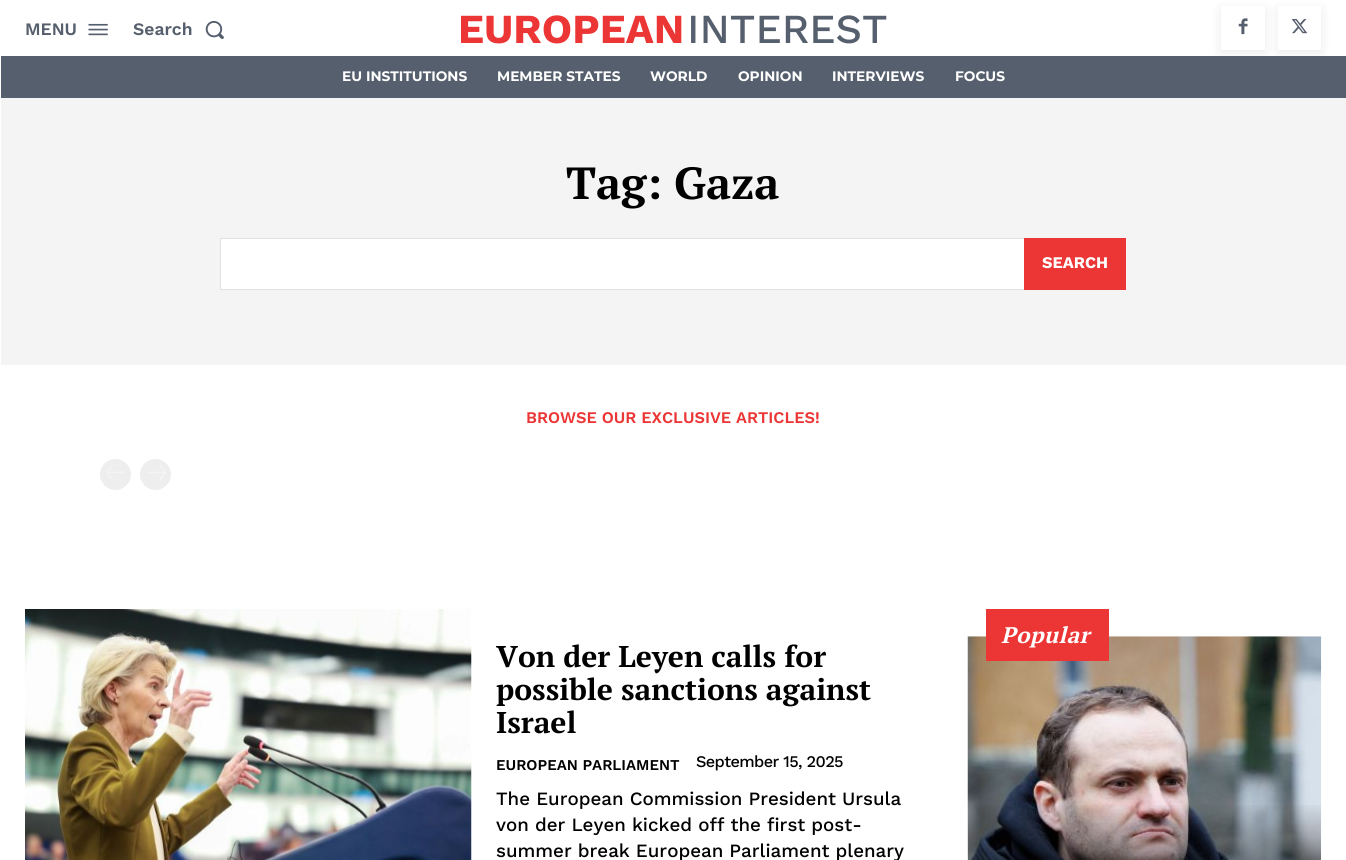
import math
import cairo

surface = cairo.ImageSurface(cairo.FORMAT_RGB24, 1346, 860)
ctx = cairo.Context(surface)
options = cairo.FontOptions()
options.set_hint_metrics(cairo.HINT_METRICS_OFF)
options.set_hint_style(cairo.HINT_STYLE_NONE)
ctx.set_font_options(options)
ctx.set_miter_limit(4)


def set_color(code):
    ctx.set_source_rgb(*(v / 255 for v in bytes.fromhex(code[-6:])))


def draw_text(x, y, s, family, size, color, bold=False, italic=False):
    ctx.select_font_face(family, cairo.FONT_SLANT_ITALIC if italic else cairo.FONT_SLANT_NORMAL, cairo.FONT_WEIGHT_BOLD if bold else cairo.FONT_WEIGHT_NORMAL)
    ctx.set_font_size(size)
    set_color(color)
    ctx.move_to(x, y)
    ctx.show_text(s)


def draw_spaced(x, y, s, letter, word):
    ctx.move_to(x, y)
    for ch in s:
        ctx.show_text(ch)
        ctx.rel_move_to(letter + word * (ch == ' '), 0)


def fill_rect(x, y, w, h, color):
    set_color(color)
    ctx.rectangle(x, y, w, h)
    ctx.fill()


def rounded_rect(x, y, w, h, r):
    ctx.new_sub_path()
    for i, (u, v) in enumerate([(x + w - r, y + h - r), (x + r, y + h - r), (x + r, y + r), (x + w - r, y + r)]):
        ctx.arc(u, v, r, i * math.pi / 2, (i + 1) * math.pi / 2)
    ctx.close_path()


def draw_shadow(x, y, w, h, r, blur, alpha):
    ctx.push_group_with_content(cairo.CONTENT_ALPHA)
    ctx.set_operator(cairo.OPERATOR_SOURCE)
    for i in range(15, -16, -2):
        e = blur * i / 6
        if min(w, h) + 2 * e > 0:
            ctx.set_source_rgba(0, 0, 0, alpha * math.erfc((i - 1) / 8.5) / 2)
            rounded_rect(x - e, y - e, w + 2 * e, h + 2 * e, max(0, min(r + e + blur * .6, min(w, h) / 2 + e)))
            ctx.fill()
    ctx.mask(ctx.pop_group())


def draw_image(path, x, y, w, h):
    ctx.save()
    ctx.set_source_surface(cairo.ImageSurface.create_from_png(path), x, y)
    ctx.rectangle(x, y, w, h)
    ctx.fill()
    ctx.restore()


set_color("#ffffff")
ctx.paint()
draw_text(25, 35, "MENU", "Work Sans SemiBold", 17.5, "#565f6d")
draw_image("assets/img1.png", 88, 23, 20, 13)
draw_text(133, 35, "Search", "Work Sans SemiBold", 17.5, "#565f6d")
draw_image("assets/img2.png", 205, 20, 19, 19)
draw_text(458, 43, "EUROPEAN", "Work Sans", 41.25, "#ec3535", bold=True)
draw_text(687, 43, "INTEREST", "Work Sans Medium", 41.25, "#565f6d")
ctx.save()
ctx.set_fill_rule(cairo.FILL_RULE_EVEN_ODD)
ctx.new_path()
ctx.move_to(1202, 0)
ctx.line_to(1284, 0)
ctx.line_to(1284, 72)
ctx.line_to(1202, 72)
ctx.close_path()
ctx.move_to(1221, 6)
ctx.line_to(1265, 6)
ctx.line_to(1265, 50)
ctx.line_to(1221, 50)
ctx.close_path()
ctx.clip()
set_color("#000000")
draw_shadow(1221, 9, 44, 44, 0, 6, 0.08)
ctx.restore()
draw_image("assets/img3.png", 1238, 18, 10, 17)
ctx.save()
ctx.set_fill_rule(cairo.FILL_RULE_EVEN_ODD)
ctx.new_path()
ctx.move_to(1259, 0)
ctx.line_to(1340, 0)
ctx.line_to(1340, 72)
ctx.line_to(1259, 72)
ctx.close_path()
ctx.move_to(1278, 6)
ctx.line_to(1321, 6)
ctx.line_to(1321, 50)
ctx.line_to(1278, 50)
ctx.close_path()
ctx.clip()
set_color("#000000")
draw_shadow(1278, 9, 43, 44, 0, 6, 0.08)
ctx.restore()
draw_image("assets/img4.png", 1291, 19, 17, 15)
fill_rect(1, 56, 1345, 42, "#565f6d")
draw_text(342, 81, "EU INSTITUTIONS", "Montserrat", 13.75, "#ffffff", bold=True)
draw_text(497, 81, "MEMBER STATES", "Montserrat", 13.75, "#ffffff", bold=True)
draw_text(650, 81, "WORLD", "Montserrat", 13.75, "#ffffff", bold=True)
draw_text(738, 81, "OPINION", "Montserrat", 13.75, "#ffffff", bold=True)
draw_text(832, 81, "INTERVIEWS", "Montserrat", 13.75, "#ffffff", bold=True)
draw_text(955, 81, "FOCUS", "Montserrat", 13.75, "#ffffff", bold=True)
fill_rect(1, 98, 1345, 267, "#f4f4f4")
draw_text(566, 199, "Tag: Gaza", "PT Serif", 45, "#000000", bold=True)
fill_rect(221, 239, 803, 50, "#ffffff")
ctx.rectangle(220.5, 238.5, 905, 51)
set_color("#e1e1e1")
ctx.set_line_width(1)
ctx.stroke()
fill_rect(1024, 238, 102, 52, "#ec3535")
draw_text(1042, 268, "SEARCH", "Work Sans", 16.25, "#ffffff", bold=True)
draw_text(526, 423, "BROWSE OUR EXCLUSIVE ARTICLES!", "Work Sans SemiBold", 16.25, "#ec3535")
set_color("#eeeeee")
ctx.new_path()
ctx.arc(115.5, 474.5, 15.5, 0, 2 * math.pi)
ctx.fill()
draw_image("assets/img5.png", 107, 465, 18, 15)
ctx.arc(155.5, 474.5, 15.5, 0, 2 * math.pi)
ctx.fill()
draw_image("assets/img6.png", 148, 465, 18, 15)
draw_image("assets/img7.png", 967, 636, 355, 224)
fill_rect(986, 609, 123, 52, "#ec3535")
ctx.select_font_face("PT Serif", cairo.FONT_SLANT_ITALIC, cairo.FONT_WEIGHT_BOLD)
ctx.set_font_size(22.5)
set_color("#ffffff")
draw_spaced(1001, 643, "Popular", 0.5, 0)
gradient = cairo.LinearGradient(1144, 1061, 1144, 636)
gradient.add_color_stop_rgba(0, 0, 0, 0, 0.8)
gradient.add_color_stop_rgba(0.42, 0, 0, 0, 0.5)
gradient.add_color_stop_rgba(0.61, 0, 0, 0, 0)
gradient.add_color_stop_rgba(1, 0, 0, 0, 0)
ctx.set_source(gradient)
ctx.rectangle(968, 805, 353, 55)
ctx.fill()
draw_image("assets/img8.png", 25, 609, 447, 251)
draw_text(496, 667, "Von der Leyen calls for", "PT Serif", 30, "#000000", bold=True)
draw_text(496, 700, "possible sanctions against", "PT Serif", 30, "#000000", bold=True)
draw_text(496, 733, "Israel", "PT Serif", 30, "#000000", bold=True)
draw_text(496, 770, "EUROPEAN PARLIAMENT", "Work Sans SemiBold", 15, "#000000")
ctx.select_font_face("Work Sans Medium")
ctx.set_font_size(16.25)
draw_spaced(696, 767, "September 15, 2025", -0.6, 0)
draw_text(496, 805, "The European Commission President Ursula", "Work Sans Medium", 18.75, "#000000")
draw_text(496, 831, "von der Leyen kicked off the first post-", "Work Sans Medium", 18.75, "#000000")
draw_text(496, 857, "summer break European Parliament plenary", "Work Sans Medium", 18.75, "#000000")
surface.write_to_png("output.png")
